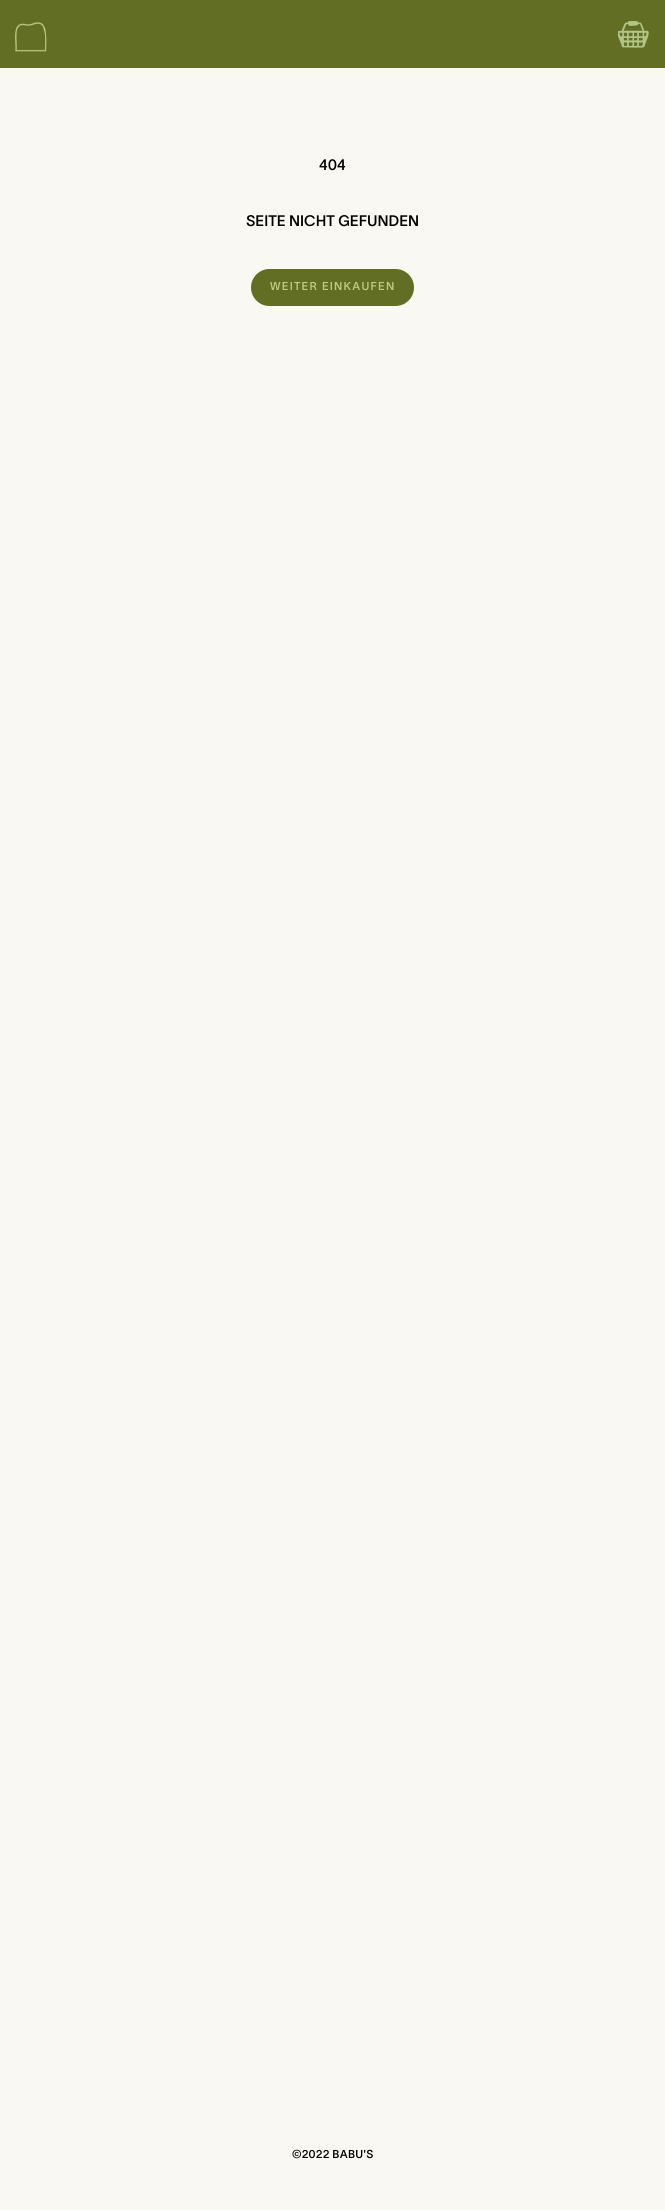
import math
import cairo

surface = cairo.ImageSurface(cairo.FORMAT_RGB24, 665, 2210)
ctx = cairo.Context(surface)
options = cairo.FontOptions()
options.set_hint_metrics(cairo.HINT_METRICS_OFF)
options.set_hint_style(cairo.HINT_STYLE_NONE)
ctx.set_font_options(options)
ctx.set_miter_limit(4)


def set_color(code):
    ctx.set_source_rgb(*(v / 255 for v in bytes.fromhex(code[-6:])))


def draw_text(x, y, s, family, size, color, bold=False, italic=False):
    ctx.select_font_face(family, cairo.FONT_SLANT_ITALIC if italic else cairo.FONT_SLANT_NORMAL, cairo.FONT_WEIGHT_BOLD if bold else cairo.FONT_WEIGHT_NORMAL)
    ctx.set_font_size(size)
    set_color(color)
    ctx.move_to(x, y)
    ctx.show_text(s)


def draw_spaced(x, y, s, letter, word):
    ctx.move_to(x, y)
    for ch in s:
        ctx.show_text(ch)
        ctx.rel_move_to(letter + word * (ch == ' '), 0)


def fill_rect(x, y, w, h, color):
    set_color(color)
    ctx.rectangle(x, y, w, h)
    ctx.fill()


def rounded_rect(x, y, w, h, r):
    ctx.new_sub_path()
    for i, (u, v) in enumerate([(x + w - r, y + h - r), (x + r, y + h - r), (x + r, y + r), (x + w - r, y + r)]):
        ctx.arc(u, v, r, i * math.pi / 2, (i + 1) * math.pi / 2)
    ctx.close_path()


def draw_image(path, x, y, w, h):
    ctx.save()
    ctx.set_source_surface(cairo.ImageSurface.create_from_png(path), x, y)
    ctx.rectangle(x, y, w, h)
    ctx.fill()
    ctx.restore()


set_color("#faf8f2")
ctx.paint()
fill_rect(0, 0, 665, 68, "#616e24")
draw_image("assets/img1.png", 15, 22, 32, 30)
draw_image("assets/img2.png", 618, 21, 31, 27)
draw_text(319, 170, "404", "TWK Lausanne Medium", 15, "#000000")
draw_text(246, 226, "SEITE NICHT GEFUNDEN", "TWK Lausanne Medium", 15, "#000000")
set_color("#616e24")
rounded_rect(251, 269, 163, 37, 18.5)
ctx.fill()
ctx.set_font_size(11.25)
set_color("#bfcc80")
draw_spaced(270, 290, "WEITER EINKAUFEN", 1.25, 0)
set_color("#000000")
draw_spaced(292, 2158, "©2022 BABU'S", 0.25, 0)
surface.write_to_png("output.png")
